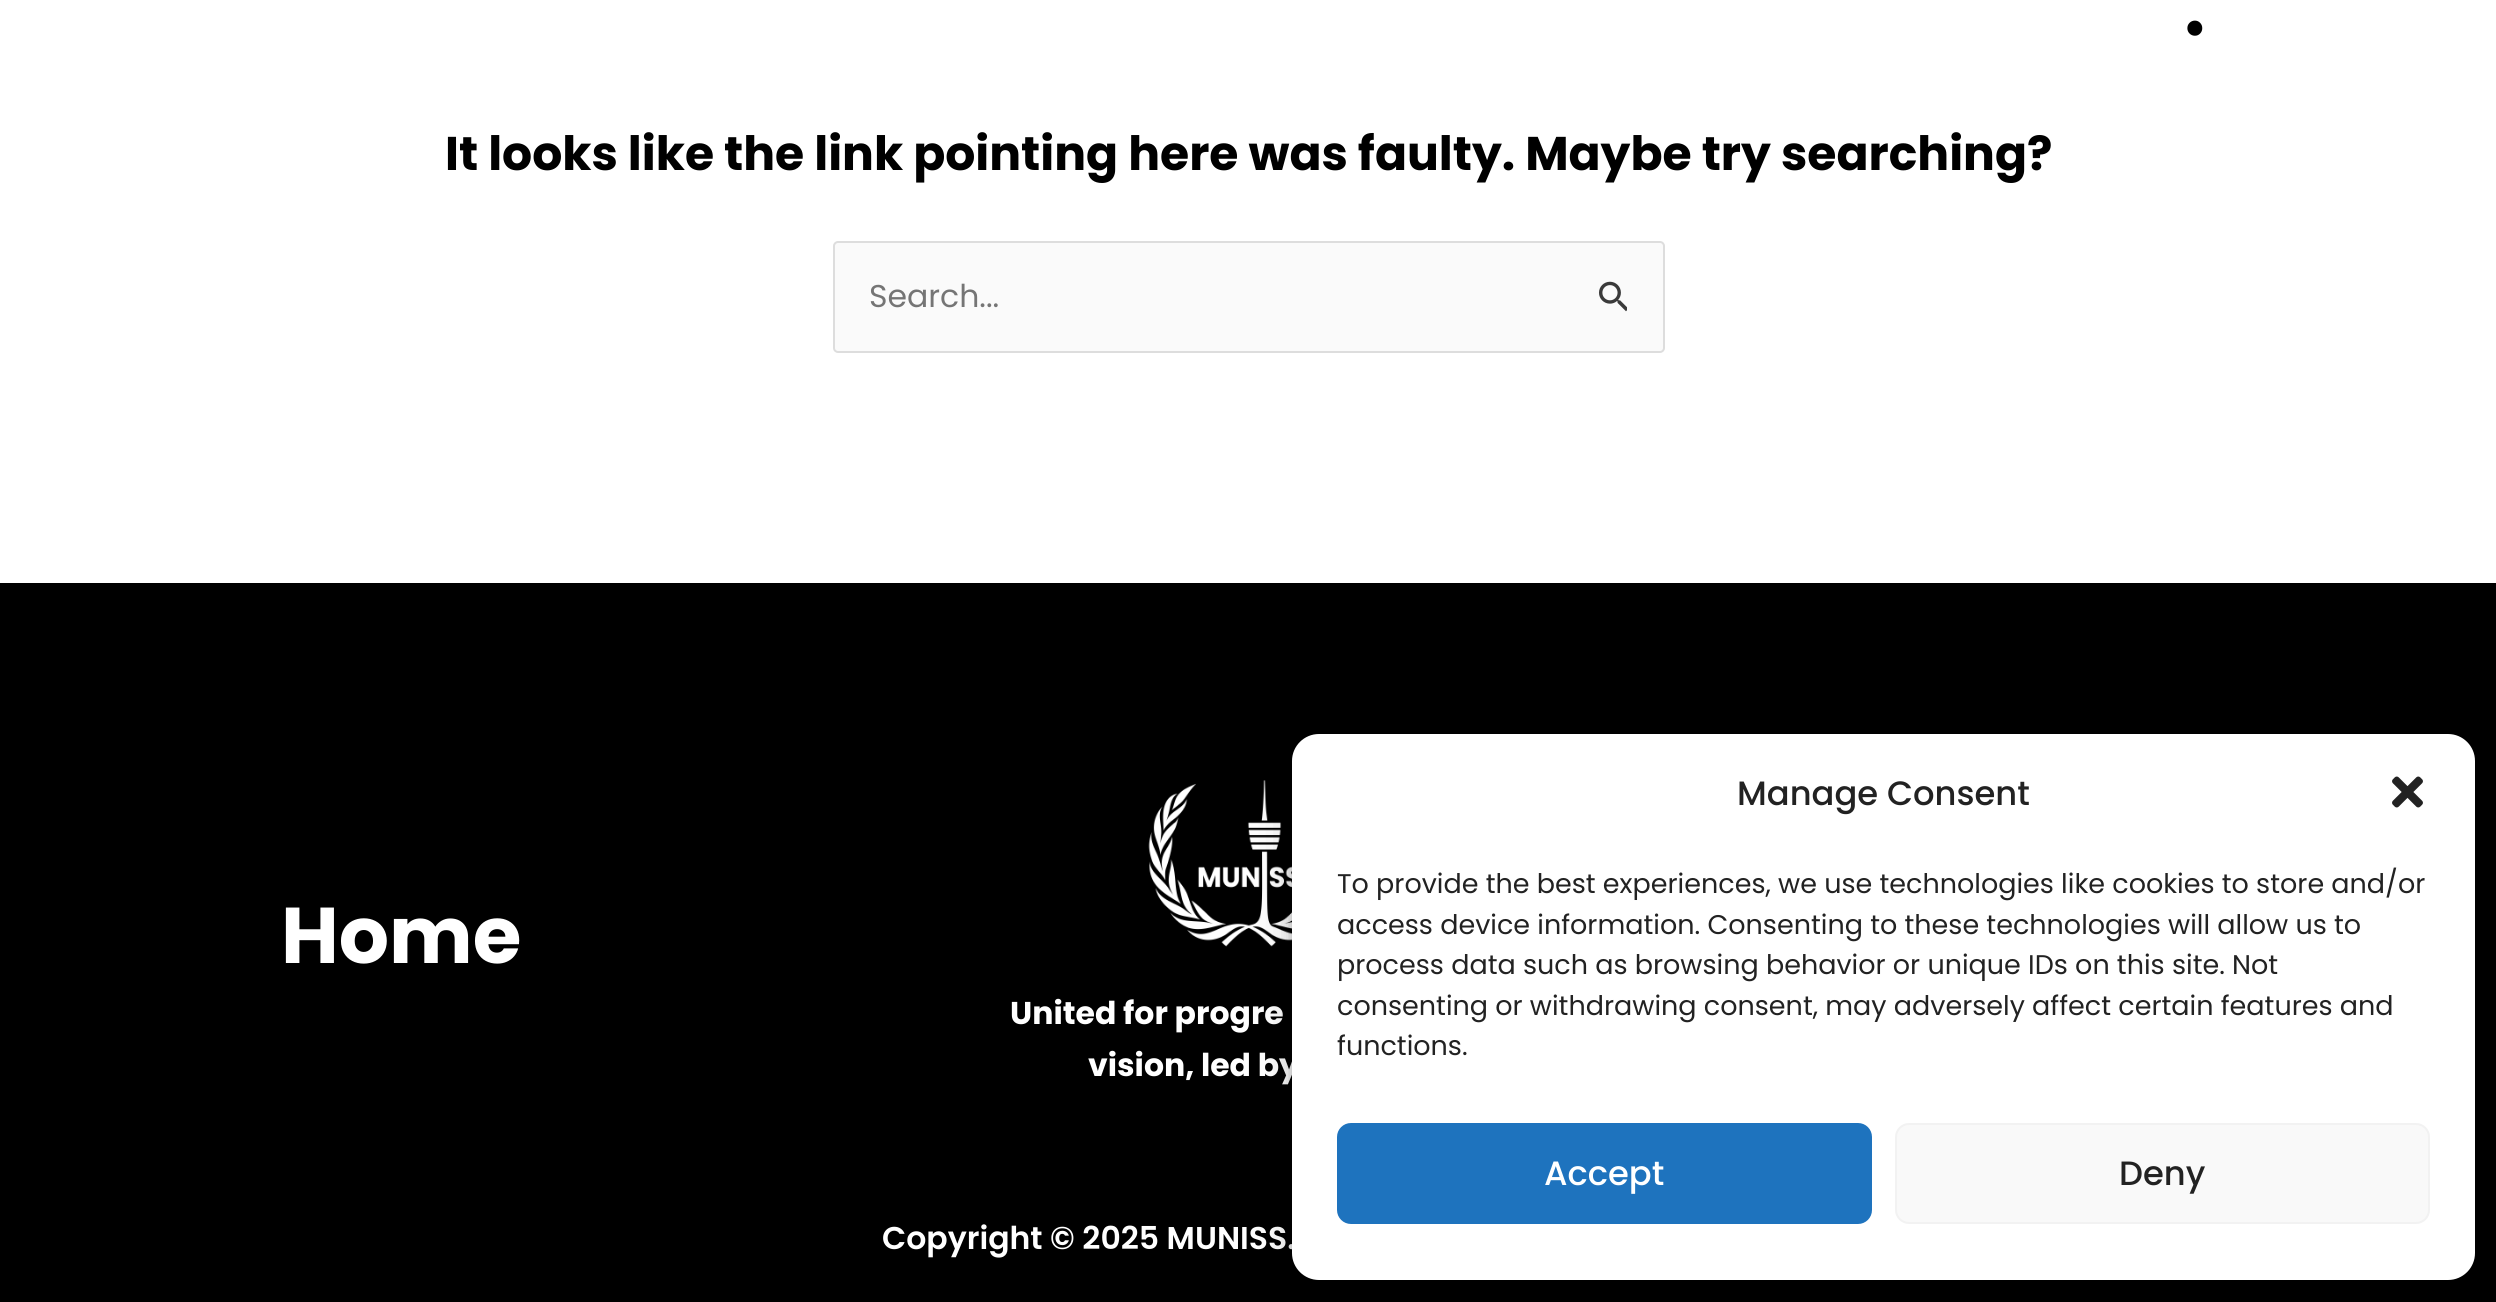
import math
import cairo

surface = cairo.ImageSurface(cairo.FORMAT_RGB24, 2496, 1302)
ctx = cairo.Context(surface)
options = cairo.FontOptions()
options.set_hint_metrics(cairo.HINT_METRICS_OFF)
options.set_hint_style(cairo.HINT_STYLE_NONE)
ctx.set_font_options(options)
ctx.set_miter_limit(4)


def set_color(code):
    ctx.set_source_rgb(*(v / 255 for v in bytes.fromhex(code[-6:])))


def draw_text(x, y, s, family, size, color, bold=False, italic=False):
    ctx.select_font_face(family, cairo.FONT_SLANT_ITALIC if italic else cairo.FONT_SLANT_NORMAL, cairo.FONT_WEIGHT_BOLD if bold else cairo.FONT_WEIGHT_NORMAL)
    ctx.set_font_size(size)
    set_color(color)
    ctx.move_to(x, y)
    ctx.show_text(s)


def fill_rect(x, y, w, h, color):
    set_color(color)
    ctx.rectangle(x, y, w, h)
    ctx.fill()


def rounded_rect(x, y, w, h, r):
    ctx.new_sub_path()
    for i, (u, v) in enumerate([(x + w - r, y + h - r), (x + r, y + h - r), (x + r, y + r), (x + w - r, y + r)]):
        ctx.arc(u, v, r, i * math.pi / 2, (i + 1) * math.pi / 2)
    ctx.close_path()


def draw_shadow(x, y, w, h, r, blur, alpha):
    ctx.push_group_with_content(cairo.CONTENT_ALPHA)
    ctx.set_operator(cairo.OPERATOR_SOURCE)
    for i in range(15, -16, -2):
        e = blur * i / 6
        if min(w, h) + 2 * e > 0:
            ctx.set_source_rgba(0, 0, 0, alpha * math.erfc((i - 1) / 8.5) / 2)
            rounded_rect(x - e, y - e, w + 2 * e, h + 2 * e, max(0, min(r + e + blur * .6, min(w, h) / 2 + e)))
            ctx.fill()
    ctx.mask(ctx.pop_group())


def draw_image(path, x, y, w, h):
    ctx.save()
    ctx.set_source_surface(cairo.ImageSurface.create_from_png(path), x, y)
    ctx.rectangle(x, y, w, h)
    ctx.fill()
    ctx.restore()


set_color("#ffffff")
ctx.paint()
draw_text(2182, 35, ".", "Poppins", 122, "#000000")
draw_text(445, 170, "It looks like the link pointing here was faulty. Maybe try searching?", "Poppins", 47.25, "#000000", bold=True)
set_color("#fafafa")
rounded_rect(834, 242, 830, 110, 4)
ctx.fill_preserve()
set_color("#dddddd")
ctx.stroke()
draw_text(869, 307, "Search...", "Poppins", 31.5, "#757575")
draw_image("assets/img1.png", 1599, 281, 28, 31)
fill_rect(0, 583, 2496, 719, "#000000")
draw_text(281, 963, "Home", "Poppins", 79, "#ffffff", bold=True)
draw_image("assets/img2.png", 1148, 780, 144, 167)
draw_text(1010, 1024, "United for progre", "Poppins", 31.5, "#ffffff", bold=True)
draw_text(1088, 1076, "vision, led by", "Poppins", 31.5, "#ffffff", bold=True)
draw_text(882, 1249, "Copyright © 2025 MUNISS.", "Poppins SemiBold", 31.5, "#ffffff")
set_color("#000000")
draw_shadow(1292, 747, 1183, 547, 27, 7, 0.23)
draw_shadow(1292, 756, 1183, 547, 27, 22.5, 0.19)
set_color("#ffffff")
rounded_rect(1292, 734, 1183, 546, 27)
ctx.fill()
draw_text(1737, 805, "Manage Consent", "Poppins Medium", 33.75, "#222222")
draw_image("assets/img3.png", 2392, 776, 31, 32)
draw_text(1337, 893, "To provide the best experiences, we use technologies like cookies to store and/or", "Poppins", 27, "#222222")
draw_text(1337, 934, "access device information. Consenting to these technologies will allow us to", "Poppins", 27, "#222222")
draw_text(1337, 974, "process data such as browsing behavior or unique IDs on this site. Not", "Poppins", 27, "#222222")
draw_text(1337, 1015, "consenting or withdrawing consent, may adversely affect certain features and", "Poppins", 27, "#222222")
draw_text(1337, 1055, "functions.", "Poppins", 27, "#222222")
set_color("#1e73be")
rounded_rect(1338, 1124, 533, 99, 13)
ctx.fill_preserve()
ctx.stroke()
draw_text(1544, 1185, "Accept", "Poppins Medium", 33.75, "#ffffff")
set_color("#f9f9f9")
rounded_rect(1896, 1124, 533, 99, 13)
ctx.fill_preserve()
set_color("#f2f2f2")
ctx.stroke()
draw_text(2119, 1185, "Deny", "Poppins Medium", 33.75, "#222222")
surface.write_to_png("output.png")
